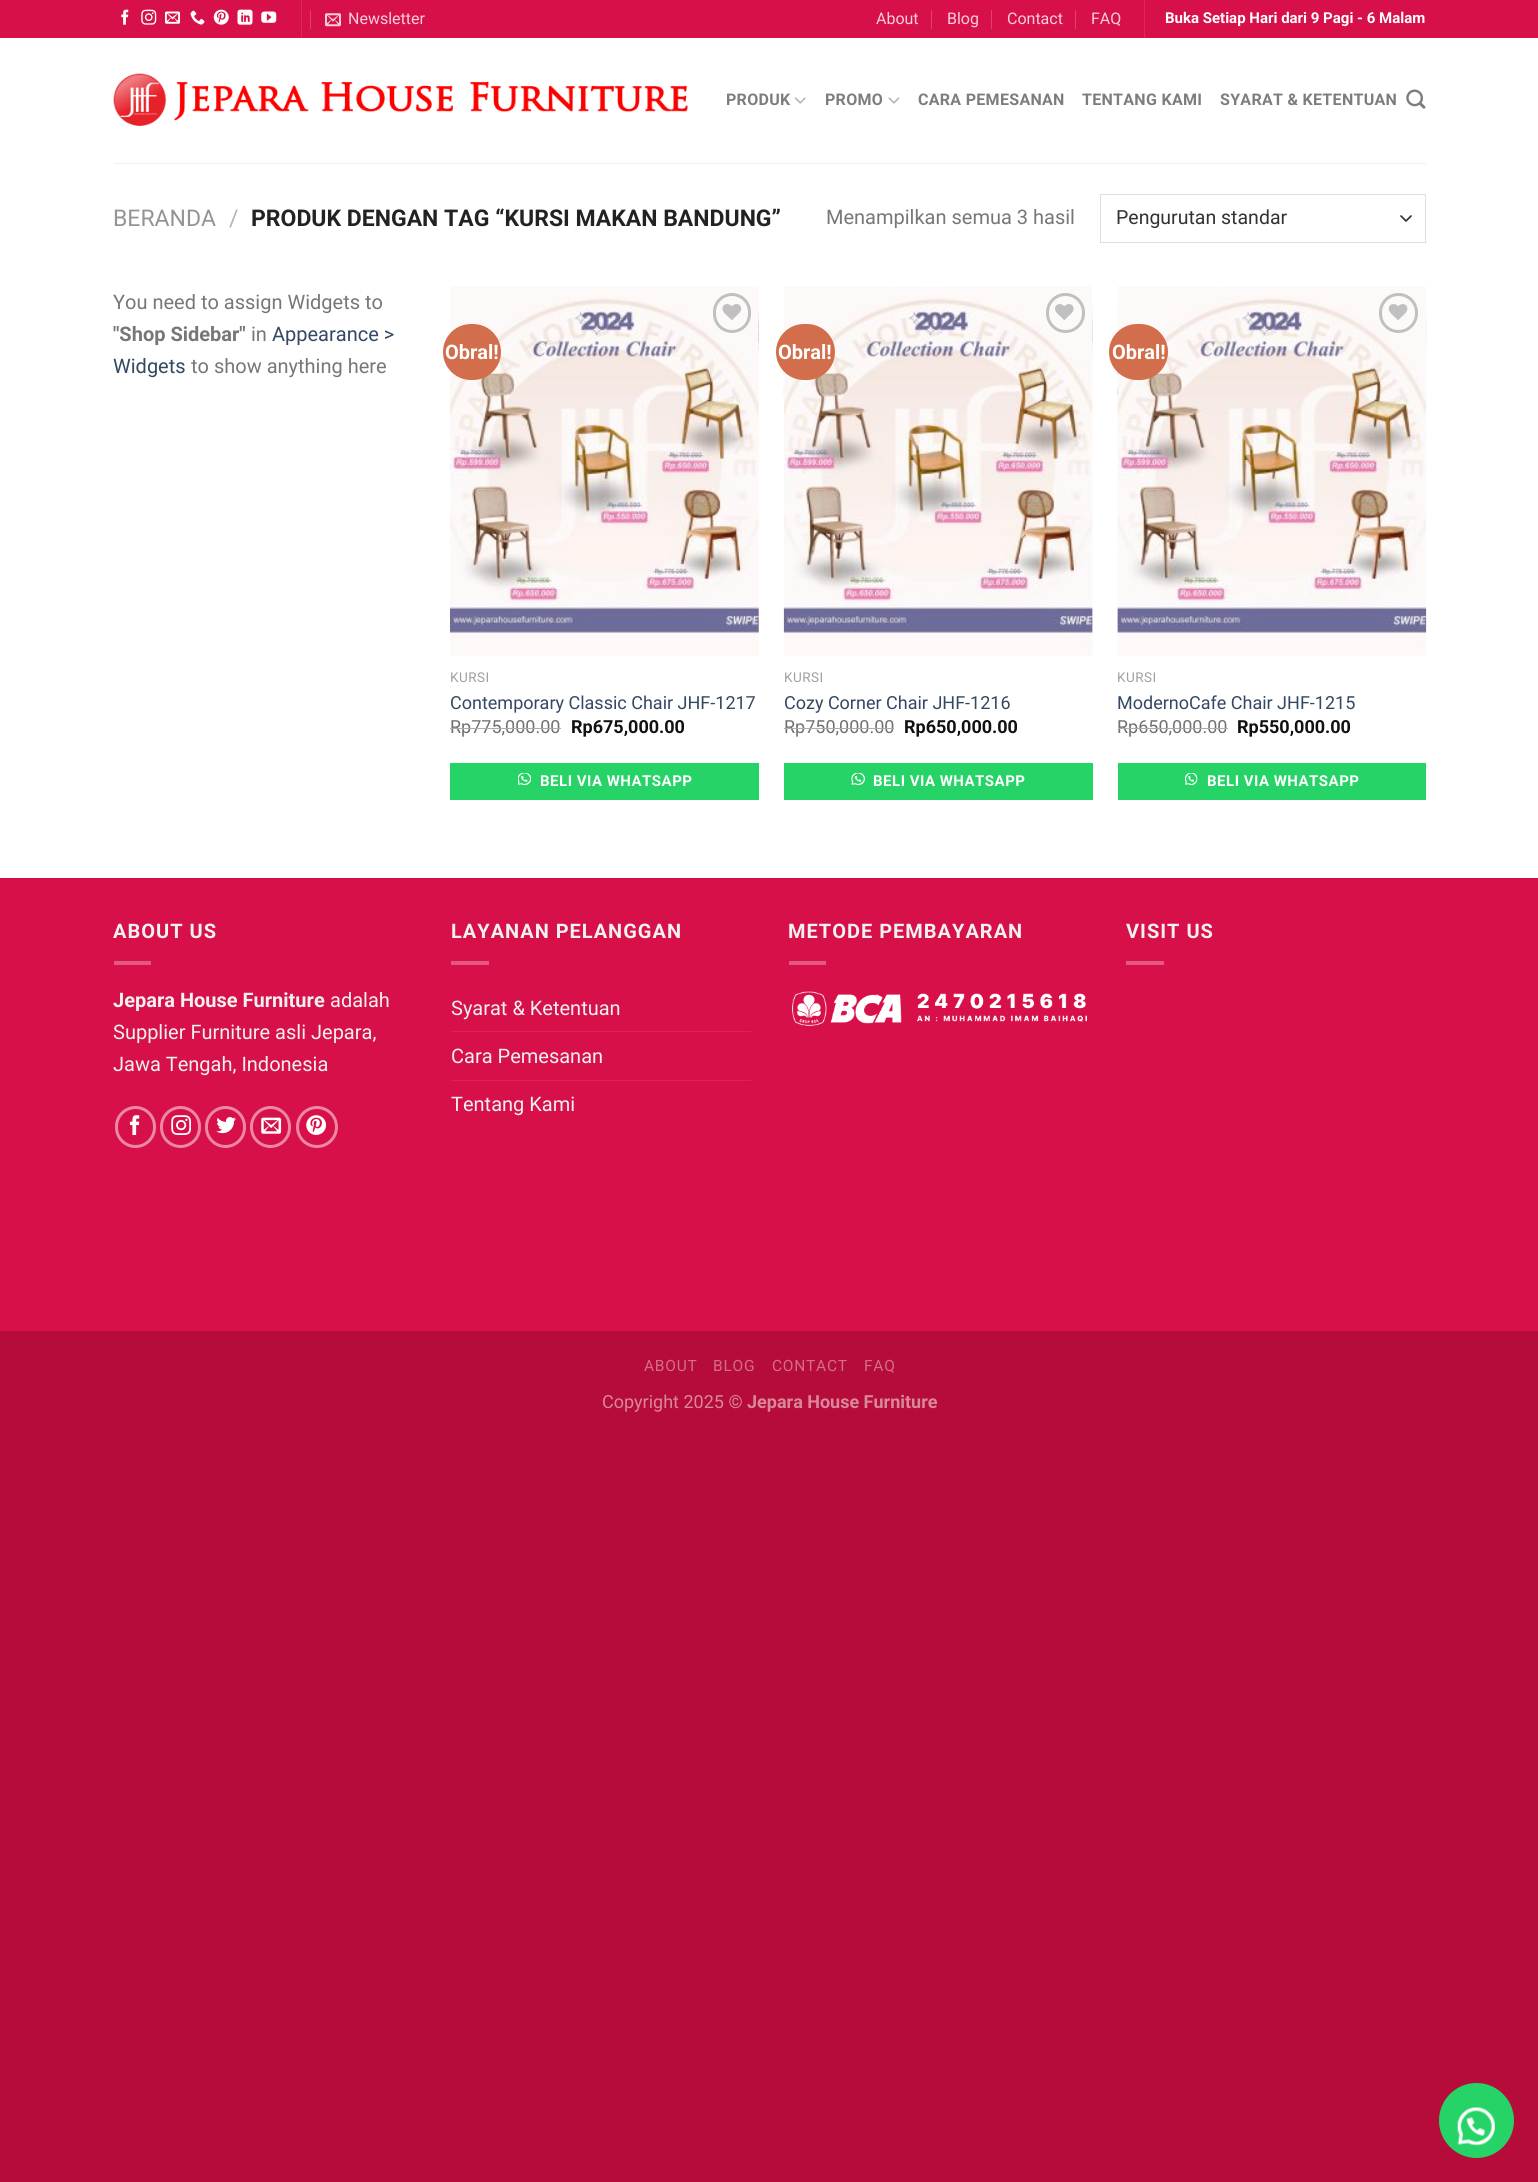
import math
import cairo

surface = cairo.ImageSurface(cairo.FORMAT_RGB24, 1538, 2182)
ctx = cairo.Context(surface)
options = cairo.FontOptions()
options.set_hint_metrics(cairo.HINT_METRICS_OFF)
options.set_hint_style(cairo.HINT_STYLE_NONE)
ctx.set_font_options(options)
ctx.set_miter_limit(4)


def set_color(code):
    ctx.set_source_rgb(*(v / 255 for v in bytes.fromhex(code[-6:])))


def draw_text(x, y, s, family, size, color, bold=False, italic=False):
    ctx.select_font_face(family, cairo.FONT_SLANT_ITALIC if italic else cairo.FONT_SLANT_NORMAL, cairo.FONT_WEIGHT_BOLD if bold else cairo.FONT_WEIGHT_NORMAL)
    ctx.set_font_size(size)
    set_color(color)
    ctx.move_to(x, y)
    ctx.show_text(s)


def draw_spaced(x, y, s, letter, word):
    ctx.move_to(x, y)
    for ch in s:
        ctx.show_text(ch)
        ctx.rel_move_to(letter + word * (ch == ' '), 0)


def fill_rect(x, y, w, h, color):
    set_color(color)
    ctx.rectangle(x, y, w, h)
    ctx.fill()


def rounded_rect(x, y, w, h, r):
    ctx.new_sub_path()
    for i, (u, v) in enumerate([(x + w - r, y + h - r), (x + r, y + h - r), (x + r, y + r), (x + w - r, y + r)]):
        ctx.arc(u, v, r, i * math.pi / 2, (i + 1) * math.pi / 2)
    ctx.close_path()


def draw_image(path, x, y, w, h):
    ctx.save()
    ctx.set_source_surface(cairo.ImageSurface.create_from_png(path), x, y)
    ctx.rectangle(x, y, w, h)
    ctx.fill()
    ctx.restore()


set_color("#b50c39")
ctx.paint()
fill_rect(0, 38, 1538, 840, "#ffffff")
fill_rect(0, 0, 1538, 38, "#d71049")
draw_image("assets/img1.png", 121, 9, 8, 16)
draw_image("assets/img2.png", 141, 9, 16, 16)
draw_image("assets/img3.png", 165, 11, 15, 13)
draw_image("assets/img4.png", 190, 10, 15, 15)
draw_image("assets/img5.png", 213, 9, 16, 16)
draw_image("assets/img6.png", 237, 9, 16, 16)
draw_image("assets/img7.png", 261, 11, 16, 12)
fill_rect(301, 0, 1, 38, "#db285b")
fill_rect(310, 10, 1, 19, "#df406d")
draw_image("assets/img8.png", 325, 13, 16, 14)
draw_text(348, 24, "Newsletter", "Roboto", 16, "#f7cfdb")
draw_text(876, 24, "About", "Roboto", 16, "#f7cfdb")
fill_rect(931, 10, 1, 19, "#df406d")
draw_text(947, 24, "Blog", "Roboto", 16, "#f7cfdb")
fill_rect(991, 10, 1, 19, "#df406d")
draw_text(1007, 24, "Contact", "Roboto", 16, "#f7cfdb")
fill_rect(1075, 10, 1, 19, "#df406d")
draw_text(1091, 24, "FAQ", "Roboto", 16, "#f7cfdb")
fill_rect(1144, 0, 1, 38, "#db285b")
draw_text(1165, 23, "Buka Setiap Hari dari 9 Pagi - 6 Malam", "Roboto", 15, "#ffffff", bold=True)
draw_image("assets/img9.png", 113, 73, 575, 53)
ctx.set_font_size(16)
set_color("#7d7d7d")
draw_spaced(726, 105, "PRODUK", 0.3, 0)
draw_image("assets/img10.png", 794, 97, 12, 7)
draw_spaced(825, 105, "PROMO", 0.3, 0)
draw_image("assets/img11.png", 888, 97, 12, 7)
draw_spaced(918, 105, "CARA PEMESANAN", 0.3, 0)
draw_spaced(1082, 105, "TENTANG KAMI", 0.3, 0)
draw_spaced(1220, 105, "SYARAT & KETENTUAN", 0.3, 0)
draw_image("assets/img12.png", 1406, 89, 20, 20)
fill_rect(114, 163, 1312, 1, "#f1f1f1")
draw_text(113, 226, "BERANDA", "Roboto", 23, "#949494")
draw_text(229, 226, "/", "Roboto", 23, "#b2b2b2")
draw_text(251, 226, "PRODUK DENGAN TAG “KURSI MAKAN BANDUNG”", "Roboto", 23, "#222222", bold=True)
draw_text(826, 224, "Menampilkan semua 3 hasil", "Roboto", 20, "#777777")
ctx.new_path()
ctx.move_to(1401, 216)
ctx.line_to(1406, 221)
ctx.line_to(1411, 216)
set_color("#333333")
ctx.set_line_width(1.7)
ctx.set_line_cap(cairo.LINE_CAP_ROUND)
ctx.set_line_join(cairo.LINE_JOIN_ROUND)
ctx.stroke()
ctx.rectangle(1100.5, 194.5, 325, 48)
set_color("#dddddd")
ctx.set_line_width(1)
ctx.set_line_cap(cairo.LINE_CAP_BUTT)
ctx.set_line_join(cairo.LINE_JOIN_MITER)
ctx.stroke()
draw_text(1116, 224, "Pengurutan standar", "Roboto", 19.5, "#333333")
draw_text(113, 309, "You need to assign Widgets to", "Roboto", 20, "#777777")
draw_text(113, 341, "\"Shop Sidebar\"", "Roboto", 20, "#777777", bold=True)
draw_text(251, 341, "in", "Roboto", 20, "#777777")
draw_text(272, 341, "Appearance >", "Roboto", 20, "#334862")
draw_text(113, 373, "Widgets", "Roboto", 20, "#334862")
draw_text(191, 373, "to show anything here", "Roboto", 20, "#777777")
draw_image("assets/img13.png", 450, 286, 309, 370)
draw_image("assets/img14.png", 450, 286, 309, 370)
set_color("#d26e4b")
rounded_rect(443, 324, 58, 56, 28)
ctx.fill()
draw_text(445, 359, "Obral!", "Roboto", 20, "#ffffff", bold=True)
rounded_rect(714.5, 294.5, 35, 37, 17.5)
set_color("#c0c0c0")
ctx.set_line_width(3)
ctx.stroke()
draw_image("assets/img15.png", 722, 304, 20, 16)
ctx.select_font_face("Roboto")
ctx.set_font_size(13.5)
set_color("#a0a0a0")
draw_spaced(450, 682, "KURSI", 0.5, 0)
draw_text(450, 709, "Contemporary Classic Chair JHF-1217", "Roboto", 18, "#334862")
draw_text(450, 733, "Rp775,000.00", "Roboto", 18, "#707070")
fill_rect(450, 728, 111, 1, "#adadad")
draw_text(571, 733, "Rp675,000.00", "Roboto", 18, "#111111", bold=True)
fill_rect(450, 763, 309, 37, "#25d366")
draw_image("assets/img16.png", 518, 773, 13, 12)
ctx.set_font_size(15)
set_color("#ffffff")
draw_spaced(540, 786, "BELI VIA WHATSAPP", 0.5, 0)
draw_image("assets/img17.png", 783, 286, 310, 370)
draw_image("assets/img18.png", 783, 299, 310, 357)
set_color("#d26e4b")
rounded_rect(776, 324, 59, 56, 28)
ctx.fill()
draw_text(778, 359, "Obral!", "Roboto", 20, "#ffffff", bold=True)
rounded_rect(1047.5, 294.5, 36, 37, 18)
set_color("#c0c0c0")
ctx.stroke()
draw_image("assets/img19.png", 1055, 304, 19, 16)
ctx.select_font_face("Roboto")
ctx.set_font_size(13.5)
set_color("#a0a0a0")
draw_spaced(784, 682, "KURSI", 0.5, 0)
draw_text(784, 709, "Cozy Corner Chair JHF-1216", "Roboto", 18, "#334862")
draw_text(784, 733, "Rp750,000.00", "Roboto", 18, "#707070")
fill_rect(784, 728, 110, 1, "#adadad")
draw_text(904, 733, "Rp650,000.00", "Roboto", 18, "#111111", bold=True)
fill_rect(784, 763, 309, 37, "#25d366")
draw_image("assets/img20.png", 851, 773, 14, 12)
ctx.set_font_size(15)
set_color("#ffffff")
draw_spaced(873, 786, "BELI VIA WHATSAPP", 0.5, 0)
draw_image("assets/img21.png", 1117, 286, 310, 370)
draw_image("assets/img22.png", 1117, 306, 310, 350)
set_color("#d26e4b")
rounded_rect(1109, 324, 59, 56, 28)
ctx.fill()
draw_text(1112, 359, "Obral!", "Roboto", 20, "#ffffff", bold=True)
rounded_rect(1380.5, 294.5, 36, 37, 18)
set_color("#c0c0c0")
ctx.stroke()
draw_image("assets/img23.png", 1388, 304, 20, 16)
ctx.select_font_face("Roboto")
ctx.set_font_size(13.5)
set_color("#a0a0a0")
draw_spaced(1117, 682, "KURSI", 0.5, 0)
draw_text(1117, 709, "ModernoCafe Chair JHF-1215", "Roboto", 18, "#334862")
draw_text(1117, 733, "Rp650,000.00", "Roboto", 18, "#707070")
fill_rect(1118, 728, 110, 1, "#adadad")
draw_text(1237, 733, "Rp550,000.00", "Roboto", 18, "#111111", bold=True)
fill_rect(1118, 763, 308, 37, "#25d366")
draw_image("assets/img24.png", 1185, 773, 13, 12)
ctx.set_font_size(15)
set_color("#ffffff")
draw_spaced(1207, 786, "BELI VIA WHATSAPP", 0.5, 0)
fill_rect(0, 879, 1538, 452, "#d71049")
fill_rect(0, 878, 1538, 1, "#cc0f45")
ctx.set_font_size(20)
set_color("#f1f1f1")
draw_spaced(113, 938, "ABOUT US", 1, 0)
fill_rect(114, 961, 37, 4, "#e35880")
draw_text(113, 1007, "Jepara House Furniture", "Roboto", 20, "#f1f1f1", bold=True)
draw_text(330, 1007, "adalah", "Roboto", 20, "#f1f1f1")
draw_text(113, 1039, "Supplier Furniture asli Jepara,", "Roboto", 20, "#f1f1f1")
draw_text(113, 1071, "Jawa Tengah, Indonesia", "Roboto", 20, "#f1f1f1")
rounded_rect(116.5, 1107.5, 38, 39, 19)
set_color("#eb88a4")
ctx.stroke()
draw_image("assets/img25.png", 129, 1115, 11, 20)
rounded_rect(161.5, 1107.5, 38, 39, 19)
ctx.stroke()
draw_image("assets/img26.png", 171, 1115, 20, 20)
rounded_rect(206.5, 1107.5, 38, 39, 19)
ctx.stroke()
draw_image("assets/img27.png", 216, 1117, 20, 17)
rounded_rect(251.5, 1107.5, 38, 39, 19)
ctx.stroke()
draw_image("assets/img28.png", 261, 1117, 21, 17)
ctx.arc(317, 1127, 19.5, 0, 2 * math.pi)
ctx.stroke()
draw_image("assets/img29.png", 306, 1115, 20, 20)
ctx.select_font_face("Roboto", cairo.FONT_SLANT_NORMAL, cairo.FONT_WEIGHT_BOLD)
set_color("#f1f1f1")
draw_spaced(451, 938, "LAYANAN PELANGGAN", 1, 0)
fill_rect(451, 961, 38, 4, "#e35880")
draw_text(451, 1015, "Syarat & Ketentuan", "Roboto", 20, "#f1f1f1")
fill_rect(451, 1031, 300, 1, "#da2358")
draw_text(451, 1063, "Cara Pemesanan", "Roboto", 20, "#f1f1f1")
fill_rect(451, 1080, 300, 1, "#da2358")
draw_text(451, 1111, "Tentang Kami", "Roboto", 20, "#f1f1f1")
ctx.select_font_face("Roboto", cairo.FONT_SLANT_NORMAL, cairo.FONT_WEIGHT_BOLD)
draw_spaced(788, 938, "METODE PEMBAYARAN", 1, 0)
fill_rect(789, 961, 37, 4, "#e35880")
draw_image("assets/img30.png", 792, 991, 295, 35)
set_color("#f1f1f1")
draw_spaced(1126, 938, "VISIT US", 1, 0)
fill_rect(1126, 961, 38, 4, "#e35880")
ctx.select_font_face("Roboto")
ctx.set_font_size(15.5)
set_color("#d36d88")
draw_spaced(644, 1371, "ABOUT", 0.75, 0)
draw_spaced(713, 1371, "BLOG", 0.75, 0)
draw_spaced(772, 1371, "CONTACT", 0.75, 0)
draw_spaced(864, 1371, "FAQ", 0.75, 0)
draw_text(602, 1408, "Copyright 2025 ©", "Roboto", 18, "#da869c")
draw_text(747, 1408, "Jepara House Furniture", "Roboto", 18, "#da869c", bold=True)
set_color("#25d366")
ctx.new_path()
ctx.arc(1476.5, 2120.5, 37.5, 0, 2 * math.pi)
ctx.fill()
draw_image("assets/img31.png", 1457, 2107, 38, 39)
surface.write_to_png("output.png")
